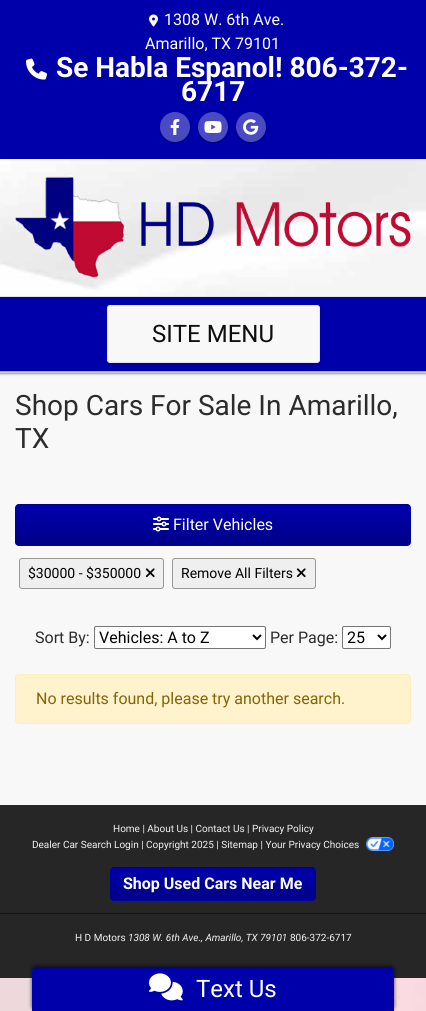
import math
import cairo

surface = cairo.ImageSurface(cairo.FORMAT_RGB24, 426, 1011)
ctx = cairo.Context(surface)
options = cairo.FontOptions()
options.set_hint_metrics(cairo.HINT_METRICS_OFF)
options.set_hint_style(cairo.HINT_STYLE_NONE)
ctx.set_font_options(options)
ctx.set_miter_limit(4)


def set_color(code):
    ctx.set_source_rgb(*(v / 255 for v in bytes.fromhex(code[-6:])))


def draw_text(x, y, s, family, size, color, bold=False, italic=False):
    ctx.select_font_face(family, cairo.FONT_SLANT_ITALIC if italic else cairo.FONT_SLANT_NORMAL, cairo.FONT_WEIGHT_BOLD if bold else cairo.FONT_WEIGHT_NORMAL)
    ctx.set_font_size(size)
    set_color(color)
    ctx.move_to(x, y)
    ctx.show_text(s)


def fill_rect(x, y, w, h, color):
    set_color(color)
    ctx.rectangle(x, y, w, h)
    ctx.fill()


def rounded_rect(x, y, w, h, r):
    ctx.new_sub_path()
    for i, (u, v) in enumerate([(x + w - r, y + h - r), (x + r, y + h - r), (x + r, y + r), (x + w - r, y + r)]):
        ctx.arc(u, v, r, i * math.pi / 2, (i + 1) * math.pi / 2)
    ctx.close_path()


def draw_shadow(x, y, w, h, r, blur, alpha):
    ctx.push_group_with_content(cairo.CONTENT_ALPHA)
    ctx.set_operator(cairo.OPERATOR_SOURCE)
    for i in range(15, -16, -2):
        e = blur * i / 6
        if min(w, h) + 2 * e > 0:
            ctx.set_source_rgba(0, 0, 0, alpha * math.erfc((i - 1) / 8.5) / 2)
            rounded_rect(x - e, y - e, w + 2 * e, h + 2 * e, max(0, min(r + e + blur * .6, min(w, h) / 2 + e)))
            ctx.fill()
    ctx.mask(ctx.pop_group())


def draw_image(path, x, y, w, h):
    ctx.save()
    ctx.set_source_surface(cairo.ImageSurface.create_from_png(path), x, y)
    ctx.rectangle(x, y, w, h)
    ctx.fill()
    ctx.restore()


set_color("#ffffff")
ctx.paint()
draw_image("assets/img1.png", 0, 159, 426, 852)
fill_rect(0, 373, 426, 432, "#f8f8f8")
set_color("#000000")
draw_shadow(0, 372, 426, 2, 0, 0.5, 0.2)
draw_shadow(-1, 371, 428, 4, 0, 1, 0.1)
fill_rect(0, 371, 426, 2, "#e5e5e5")
ctx.save()
ctx.rectangle(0, 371, 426, 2)
ctx.clip()
set_color("#000000")
draw_shadow(0, 1, 426, 371, 0, 0.5, 0.2)
ctx.restore()
ctx.save()
ctx.rectangle(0, 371, 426, 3)
ctx.clip()
set_color("#000000")
draw_shadow(-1, 0, 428, 373, 0, 1, 0.1)
ctx.restore()
fill_rect(0, 0, 426, 159, "#0000ab")
draw_image("assets/img2.png", 149, 14, 9, 13)
draw_text(164, 25, "1308 W. 6th Ave.", "Roboto", 16, "#ffffff")
draw_text(145, 49, "Amarillo, TX 79101", "Roboto", 16, "#ffffff")
draw_image("assets/img3.png", 26, 58, 21, 22)
draw_text(56, 77, "Se Habla Espanol! 806-372-", "Roboto", 28, "#ffffff", bold=True)
draw_text(181, 101, "6717", "Roboto", 28, "#ffffff", bold=True)
ctx.save()
ctx.set_fill_rule(cairo.FILL_RULE_EVEN_ODD)
ctx.new_path()
ctx.move_to(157, 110)
ctx.line_to(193, 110)
ctx.line_to(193, 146)
ctx.line_to(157, 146)
ctx.close_path()
ctx.move_to(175, 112)
ctx.curve_to(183.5, 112, 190, 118.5, 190, 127)
ctx.curve_to(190, 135.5, 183.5, 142, 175, 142)
ctx.curve_to(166.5, 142, 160, 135.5, 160, 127)
ctx.curve_to(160, 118.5, 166.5, 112, 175, 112)
ctx.close_path()
ctx.clip()
set_color("#000000")
draw_shadow(160, 113, 30, 30, 15, 0.5, 0.2)
ctx.restore()
ctx.save()
ctx.set_fill_rule(cairo.FILL_RULE_EVEN_ODD)
ctx.new_path()
ctx.move_to(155, 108)
ctx.line_to(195, 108)
ctx.line_to(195, 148)
ctx.line_to(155, 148)
ctx.close_path()
ctx.move_to(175, 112)
ctx.curve_to(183.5, 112, 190, 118.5, 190, 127)
ctx.curve_to(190, 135.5, 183.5, 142, 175, 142)
ctx.curve_to(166.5, 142, 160, 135.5, 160, 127)
ctx.curve_to(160, 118.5, 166.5, 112, 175, 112)
ctx.close_path()
ctx.clip()
set_color("#000000")
draw_shadow(159, 112, 32, 32, 16, 1, 0.1)
ctx.restore()
ctx.set_source_rgba(0.973, 0.973, 0.973, 0.3)
ctx.arc(175, 127, 15, 0, 2 * math.pi)
ctx.fill()
draw_image("assets/img4.png", 170, 119, 10, 16)
ctx.save()
ctx.set_fill_rule(cairo.FILL_RULE_EVEN_ODD)
ctx.new_path()
ctx.move_to(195, 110)
ctx.line_to(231, 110)
ctx.line_to(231, 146)
ctx.line_to(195, 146)
ctx.close_path()
ctx.move_to(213, 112)
ctx.curve_to(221.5, 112, 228, 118.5, 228, 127)
ctx.curve_to(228, 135.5, 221.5, 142, 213, 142)
ctx.curve_to(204.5, 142, 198, 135.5, 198, 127)
ctx.curve_to(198, 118.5, 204.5, 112, 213, 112)
ctx.close_path()
ctx.clip()
set_color("#000000")
draw_shadow(198, 113, 30, 30, 15, 0.5, 0.2)
ctx.restore()
ctx.save()
ctx.set_fill_rule(cairo.FILL_RULE_EVEN_ODD)
ctx.new_path()
ctx.move_to(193, 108)
ctx.line_to(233, 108)
ctx.line_to(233, 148)
ctx.line_to(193, 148)
ctx.close_path()
ctx.move_to(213, 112)
ctx.curve_to(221.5, 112, 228, 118.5, 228, 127)
ctx.curve_to(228, 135.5, 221.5, 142, 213, 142)
ctx.curve_to(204.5, 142, 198, 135.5, 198, 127)
ctx.curve_to(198, 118.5, 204.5, 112, 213, 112)
ctx.close_path()
ctx.clip()
set_color("#000000")
draw_shadow(197, 112, 32, 32, 16, 1, 0.1)
ctx.restore()
ctx.arc(213, 127, 15, 0, 2 * math.pi)
ctx.fill()
draw_image("assets/img5.png", 204, 121, 18, 12)
ctx.save()
ctx.set_fill_rule(cairo.FILL_RULE_EVEN_ODD)
ctx.new_path()
ctx.move_to(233, 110)
ctx.line_to(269, 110)
ctx.line_to(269, 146)
ctx.line_to(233, 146)
ctx.close_path()
ctx.move_to(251, 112)
ctx.curve_to(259.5, 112, 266, 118.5, 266, 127)
ctx.curve_to(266, 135.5, 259.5, 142, 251, 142)
ctx.curve_to(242.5, 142, 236, 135.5, 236, 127)
ctx.curve_to(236, 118.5, 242.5, 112, 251, 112)
ctx.close_path()
ctx.clip()
set_color("#000000")
draw_shadow(236, 113, 30, 30, 15, 0.5, 0.2)
ctx.restore()
ctx.save()
ctx.set_fill_rule(cairo.FILL_RULE_EVEN_ODD)
ctx.new_path()
ctx.move_to(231, 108)
ctx.line_to(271, 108)
ctx.line_to(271, 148)
ctx.line_to(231, 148)
ctx.close_path()
ctx.move_to(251, 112)
ctx.curve_to(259.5, 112, 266, 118.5, 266, 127)
ctx.curve_to(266, 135.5, 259.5, 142, 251, 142)
ctx.curve_to(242.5, 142, 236, 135.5, 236, 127)
ctx.curve_to(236, 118.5, 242.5, 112, 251, 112)
ctx.close_path()
ctx.clip()
set_color("#000000")
draw_shadow(235, 112, 32, 32, 16, 1, 0.1)
ctx.restore()
ctx.arc(251, 127, 15, 0, 2 * math.pi)
ctx.fill()
draw_image("assets/img6.png", 243, 119, 16, 16)
draw_image("assets/img7.png", 15, 175, 396, 103)
fill_rect(0, 296, 426, 1, "#e5e5e5")
fill_rect(0, 297, 426, 74, "#0000ab")
set_color("#f8f8f8")
rounded_rect(107.5, 305.5, 212, 57, 2.5)
ctx.fill_preserve()
set_color("#e5e5e5")
ctx.set_line_width(1)
ctx.stroke()
draw_text(152, 342, "SITE MENU", "Roboto", 24, "#0e0e0e")
draw_text(15, 415, "Shop Cars For Sale In Amarillo,", "Roboto", 28, "#2c2c2c")
draw_text(15, 448, "TX", "Roboto", 28, "#2c2c2c")
set_color("#0000ab")
rounded_rect(15, 504, 396, 42, 4)
ctx.fill()
ctx.save()
rounded_rect(15, 504, 396, 42, 4)
ctx.clip()
gradient = cairo.LinearGradient(213, 465, 213, 505)
gradient.add_color_stop_rgba(0, 0, 0, 0, 0)
gradient.add_color_stop_rgba(1, 0, 0, 0, 0.2)
ctx.set_source(gradient)
ctx.rectangle(15, 504, 396, 1)
ctx.fill()
gradient = cairo.LinearGradient(213, 505, 213, 545)
gradient.add_color_stop_rgba(0, 0, 0, 0, 0)
gradient.add_color_stop_rgba(1, 0, 0, 0, 0.2)
ctx.set_source(gradient)
ctx.rectangle(15, 509, 396, 36)
ctx.fill()
ctx.restore()
draw_image("assets/img8.png", 153, 516, 16, 16)
draw_text(173, 530, "Filter Vehicles", "Roboto", 16, "#ffffff")
set_color("#efefef")
rounded_rect(19.5, 558.5, 144, 30, 2.5)
ctx.fill_preserve()
set_color("#999999")
ctx.stroke()
draw_text(28, 578, "$30000 - $350000", "Roboto", 14, "#000000")
draw_image("assets/img9.png", 145, 568, 10, 10)
set_color("#efefef")
rounded_rect(172.5, 558.5, 143, 30, 2.5)
ctx.fill_preserve()
set_color("#999999")
ctx.stroke()
draw_text(181, 578, "Remove All Filters", "Roboto", 14, "#000000")
draw_image("assets/img9.png", 296, 568, 10, 10)
draw_text(35, 643, "Sort By:", "Roboto", 16, "#2c2c2c")
set_color("#ffffff")
rounded_rect(94.5, 626.5, 171, 22, 1.5)
ctx.fill_preserve()
set_color("#767676")
ctx.stroke()
ctx.new_path()
ctx.move_to(253, 635)
ctx.line_to(257, 639)
ctx.line_to(261, 635)
set_color("#000000")
ctx.set_line_width(2)
ctx.stroke()
draw_text(99, 643, "Vehicles: A to Z", "Roboto", 16, "#000000")
draw_text(270, 643, "Per Page:", "Roboto", 16, "#2c2c2c")
set_color("#ffffff")
rounded_rect(342.5, 626.5, 48, 22, 1.5)
ctx.fill_preserve()
set_color("#767676")
ctx.set_line_width(1)
ctx.stroke()
ctx.new_path()
ctx.move_to(378, 635)
ctx.line_to(382, 639)
ctx.line_to(386, 635)
set_color("#000000")
ctx.set_line_width(2)
ctx.stroke()
draw_text(347, 643, "25", "Roboto", 16, "#000000")
set_color("#fff3cd")
rounded_rect(15.5, 674.5, 395, 49, 3.5)
ctx.fill_preserve()
set_color("#ffeeba")
ctx.set_line_width(1)
ctx.stroke()
draw_text(36, 704, "No results found, please try another search.", "Roboto", 16, "#856404")
fill_rect(0, 805, 426, 173, "#262626")
draw_text(113, 832, "Home | About Us | Contact Us | Privacy Policy", "Roboto", 10, "#f2f2f2")
draw_text(32, 848, "Dealer Car Search Login | Copyright 2025 | Sitemap | Your Privacy Choices", "Roboto", 10, "#f2f2f2")
draw_image("assets/img10.png", 366, 837, 28, 14)
fill_rect(0, 913, 426, 1, "#0000ab")
rounded_rect(110, 867, 206, 34, 4)
ctx.fill()
ctx.save()
rounded_rect(110, 867, 206, 34, 4)
ctx.clip()
gradient = cairo.LinearGradient(213, 836, 213, 868)
gradient.add_color_stop_rgba(0, 0, 0, 0, 0)
gradient.add_color_stop_rgba(1, 0, 0, 0, 0.2)
ctx.set_source(gradient)
ctx.rectangle(110, 867, 206, 1)
ctx.fill()
gradient = cairo.LinearGradient(213, 868, 213, 900)
gradient.add_color_stop_rgba(0, 0, 0, 0, 0)
gradient.add_color_stop_rgba(1, 0, 0, 0, 0.2)
ctx.set_source(gradient)
ctx.rectangle(110, 871, 206, 29)
ctx.fill()
ctx.restore()
draw_text(123, 889, "Shop Used Cars Near Me", "Roboto", 16, "#ffffff", bold=True)
draw_text(75, 941, "H D Motors", "Roboto", 10, "#f2f2f2")
draw_text(128, 941, "1308 W. 6th Ave., Amarillo, TX 79101", "Roboto", 10, "#f2f2f2", italic=True)
draw_text(290, 941, "806-372-6717", "Roboto", 10, "#f2f2f2")
set_color("#000000")
draw_shadow(31, 965, 364, 46, 5, 1, 0.25)
draw_shadow(30, 964, 366, 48, 6, 1.5, 0.15)
set_color("#0000ab")
ctx.new_path()
ctx.move_to(36, 967)
ctx.line_to(390, 967)
ctx.curve_to(392, 967, 394, 969, 394, 971)
ctx.line_to(394, 1011)
ctx.line_to(32, 1011)
ctx.line_to(32, 971)
ctx.curve_to(32, 969, 34, 967, 36, 967)
ctx.close_path()
ctx.fill()
draw_image("assets/img11.png", 149, 973, 34, 28)
draw_text(196, 997, "Text Us", "Roboto", 24, "#ffffff")
surface.write_to_png("output.png")
